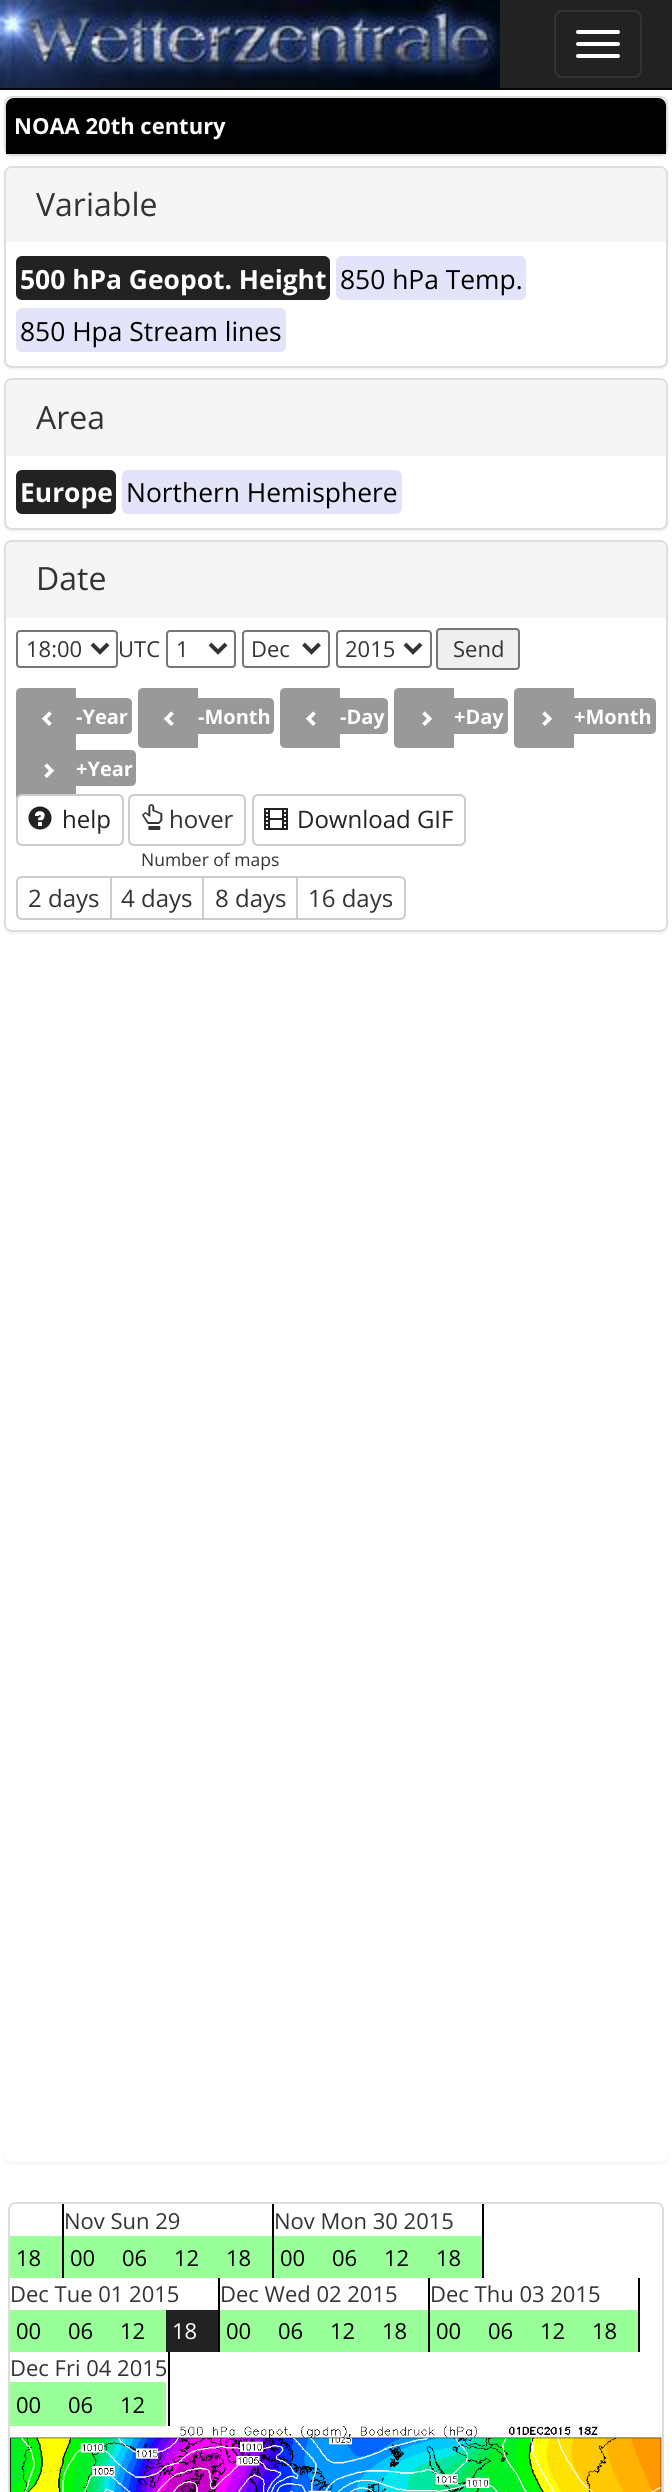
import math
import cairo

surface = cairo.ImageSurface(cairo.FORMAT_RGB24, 672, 2492)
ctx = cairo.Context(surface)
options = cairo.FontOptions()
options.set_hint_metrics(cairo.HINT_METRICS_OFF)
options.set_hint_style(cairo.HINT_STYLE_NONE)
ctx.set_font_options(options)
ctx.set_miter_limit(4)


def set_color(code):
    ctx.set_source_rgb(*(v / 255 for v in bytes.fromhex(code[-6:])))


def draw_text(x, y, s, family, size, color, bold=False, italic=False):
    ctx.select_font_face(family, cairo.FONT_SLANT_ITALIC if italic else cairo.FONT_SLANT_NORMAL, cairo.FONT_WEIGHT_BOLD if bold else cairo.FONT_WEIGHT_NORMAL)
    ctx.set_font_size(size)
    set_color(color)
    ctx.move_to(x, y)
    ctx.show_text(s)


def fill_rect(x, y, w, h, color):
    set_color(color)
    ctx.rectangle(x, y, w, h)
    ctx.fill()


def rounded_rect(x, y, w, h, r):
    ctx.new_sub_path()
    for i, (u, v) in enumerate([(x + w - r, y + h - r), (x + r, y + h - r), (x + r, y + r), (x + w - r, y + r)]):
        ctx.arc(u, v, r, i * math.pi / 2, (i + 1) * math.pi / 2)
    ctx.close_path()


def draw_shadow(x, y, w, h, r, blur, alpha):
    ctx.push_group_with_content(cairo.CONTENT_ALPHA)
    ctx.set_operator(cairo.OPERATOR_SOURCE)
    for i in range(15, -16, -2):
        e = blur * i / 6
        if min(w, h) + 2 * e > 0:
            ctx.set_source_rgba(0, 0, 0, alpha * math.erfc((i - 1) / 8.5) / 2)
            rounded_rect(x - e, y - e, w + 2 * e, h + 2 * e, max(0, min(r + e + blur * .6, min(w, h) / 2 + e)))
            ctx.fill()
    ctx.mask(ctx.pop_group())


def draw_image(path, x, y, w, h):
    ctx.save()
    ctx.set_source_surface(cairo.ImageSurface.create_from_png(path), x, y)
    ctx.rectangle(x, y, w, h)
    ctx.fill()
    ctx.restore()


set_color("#ffffff")
ctx.paint()
fill_rect(500, 0, 172, 88, "#222222")
fill_rect(0, 88, 672, 2, "#080808")
draw_image("assets/img1.png", 0, 0, 500, 88)
rounded_rect(555, 11, 86, 66, 7)
set_color("#333333")
ctx.stroke()
set_color("#ffffff")
rounded_rect(576, 30, 44, 4, 2)
ctx.fill()
rounded_rect(576, 42, 44, 4, 2)
ctx.fill()
rounded_rect(576, 54, 44, 4, 2)
ctx.fill()
set_color("#000000")
draw_shadow(4, 98, 664, 60, 8, 1, 0.05)
set_color("#ffffff")
rounded_rect(5, 97, 662, 58, 7)
ctx.fill_preserve()
set_color("#dddddd")
ctx.stroke()
set_color("#000000")
ctx.new_path()
ctx.move_to(14, 98)
ctx.line_to(658, 98)
ctx.curve_to(662.5, 98, 666, 101.5, 666, 106)
ctx.line_to(666, 154)
ctx.line_to(6, 154)
ctx.line_to(6, 106)
ctx.curve_to(6, 101.5, 9.5, 98, 14, 98)
ctx.close_path()
ctx.fill()
draw_text(14, 134, "NOAA 20th century", "Open Sans", 22, "#ffffff", bold=True)
set_color("#000000")
draw_shadow(4, 168, 664, 202, 8, 1, 0.05)
set_color("#ffffff")
rounded_rect(5, 167, 662, 200, 7)
ctx.fill_preserve()
set_color("#dddddd")
ctx.stroke()
set_color("#f5f5f5")
ctx.new_path()
ctx.move_to(12, 168)
ctx.line_to(660, 168)
ctx.curve_to(663.5, 168, 666, 170.5, 666, 174)
ctx.line_to(666, 242)
ctx.line_to(6, 242)
ctx.line_to(6, 174)
ctx.curve_to(6, 170.5, 8.5, 168, 12, 168)
ctx.close_path()
ctx.fill()
draw_text(36, 216, "Variable", "Open Sans", 32, "#333333")
set_color("#222222")
rounded_rect(16, 256, 314, 44, 6)
ctx.fill()
draw_text(20, 289, "500 hPa Geopot. Height", "Open Sans", 26.4, "#ffffff", bold=True)
set_color("#e3e4fa")
rounded_rect(336, 256, 190, 44, 6)
ctx.fill()
draw_text(340, 289, "850 hPa Temp.", "Open Sans", 26.4, "#000000")
set_color("#e3e4fa")
rounded_rect(16, 308, 270, 44, 6)
ctx.fill()
draw_text(20, 341, "850 Hpa Stream lines", "Open Sans", 26.4, "#000000")
set_color("#000000")
draw_shadow(4, 380, 664, 152, 8, 1, 0.05)
set_color("#ffffff")
rounded_rect(5, 379, 662, 150, 7)
ctx.fill_preserve()
set_color("#dddddd")
ctx.stroke()
set_color("#f5f5f5")
ctx.new_path()
ctx.move_to(12, 380)
ctx.line_to(660, 380)
ctx.curve_to(663.5, 380, 666, 382.5, 666, 386)
ctx.line_to(666, 456)
ctx.line_to(6, 456)
ctx.line_to(6, 386)
ctx.curve_to(6, 382.5, 8.5, 380, 12, 380)
ctx.close_path()
ctx.fill()
draw_text(36, 429, "Area", "Open Sans", 32, "#333333")
set_color("#222222")
rounded_rect(16, 470, 100, 44, 6)
ctx.fill()
draw_text(20, 502, "Europe", "Open Sans", 26.4, "#ffffff", bold=True)
set_color("#e3e4fa")
rounded_rect(122, 470, 280, 44, 6)
ctx.fill()
draw_text(126, 502, "Northern Hemisphere", "Open Sans", 26.4, "#000000")
set_color("#000000")
draw_shadow(4, 542, 664, 392, 8, 1, 0.05)
set_color("#ffffff")
rounded_rect(5, 541, 662, 390, 7)
ctx.fill_preserve()
set_color("#dddddd")
ctx.stroke()
set_color("#f5f5f5")
ctx.new_path()
ctx.move_to(12, 542)
ctx.line_to(660, 542)
ctx.curve_to(663.5, 542, 666, 544.5, 666, 548)
ctx.line_to(666, 618)
ctx.line_to(6, 618)
ctx.line_to(6, 548)
ctx.curve_to(6, 544.5, 8.5, 542, 12, 542)
ctx.close_path()
ctx.fill()
draw_text(36, 590, "Date", "Open Sans", 32, "#333333")
rounded_rect(17, 631, 100, 36, 3)
set_color("#767676")
ctx.stroke()
ctx.new_path()
ctx.move_to(92, 644)
ctx.line_to(100, 652)
ctx.line_to(108, 644)
set_color("#333333")
ctx.set_line_width(4)
ctx.stroke()
draw_text(26, 657, "18:00", "Open Sans", 22, "#333333")
draw_text(118, 657, "UTC", "Open Sans", 22, "#333333")
rounded_rect(167, 631, 68, 36, 3)
set_color("#767676")
ctx.set_line_width(2)
ctx.stroke()
ctx.new_path()
ctx.move_to(210, 644)
ctx.line_to(218, 652)
ctx.line_to(226, 644)
set_color("#333333")
ctx.set_line_width(4)
ctx.stroke()
draw_text(176, 657, "1", "Open Sans", 22, "#333333")
rounded_rect(243, 631, 86, 36, 3)
set_color("#767676")
ctx.set_line_width(2)
ctx.stroke()
ctx.new_path()
ctx.move_to(303.5, 644)
ctx.line_to(311.5, 652)
ctx.line_to(319.5, 644)
set_color("#333333")
ctx.set_line_width(4)
ctx.stroke()
draw_text(251, 657, "Dec", "Open Sans", 22, "#333333")
rounded_rect(337, 631, 94, 36, 3)
set_color("#767676")
ctx.set_line_width(2)
ctx.stroke()
ctx.new_path()
ctx.move_to(405, 644)
ctx.line_to(413, 652)
ctx.line_to(421, 644)
set_color("#333333")
ctx.set_line_width(4)
ctx.stroke()
draw_text(345, 657, "2015", "Open Sans", 22, "#333333")
set_color("#efefef")
rounded_rect(437, 629, 82, 40, 3)
ctx.fill_preserve()
set_color("#767676")
ctx.set_line_width(2)
ctx.stroke()
draw_text(453, 657, "Send", "Open Sans", 22, "#333333")
set_color("#999999")
ctx.new_path()
ctx.move_to(21, 688)
ctx.line_to(76, 688)
ctx.line_to(76, 748)
ctx.line_to(21, 748)
ctx.curve_to(18, 748, 16, 746, 16, 743)
ctx.line_to(16, 693)
ctx.curve_to(16, 690, 18, 688, 21, 688)
ctx.close_path()
ctx.fill()
ctx.new_path()
ctx.move_to(76, 698)
ctx.line_to(127, 698)
ctx.curve_to(130, 698, 132, 700, 132, 703)
ctx.line_to(132, 729)
ctx.curve_to(132, 732, 130, 734, 127, 734)
ctx.line_to(76, 734)
ctx.close_path()
ctx.fill()
draw_image("assets/img2.png", 42, 711, 10, 15)
draw_text(76, 724, "-Year", "Open Sans", 20, "#ffffff", bold=True)
set_color("#999999")
ctx.new_path()
ctx.move_to(143, 688)
ctx.line_to(198, 688)
ctx.line_to(198, 748)
ctx.line_to(143, 748)
ctx.curve_to(140, 748, 138, 746, 138, 743)
ctx.line_to(138, 693)
ctx.curve_to(138, 690, 140, 688, 143, 688)
ctx.close_path()
ctx.fill()
ctx.new_path()
ctx.move_to(198, 698)
ctx.line_to(269, 698)
ctx.curve_to(272, 698, 274, 700, 274, 703)
ctx.line_to(274, 729)
ctx.curve_to(274, 732, 272, 734, 269, 734)
ctx.line_to(198, 734)
ctx.close_path()
ctx.fill()
draw_image("assets/img2.png", 164, 711, 10, 15)
draw_text(198, 724, "-Month", "Open Sans", 20, "#ffffff", bold=True)
set_color("#999999")
ctx.new_path()
ctx.move_to(285, 688)
ctx.line_to(340, 688)
ctx.line_to(340, 748)
ctx.line_to(285, 748)
ctx.curve_to(282, 748, 280, 746, 280, 743)
ctx.line_to(280, 693)
ctx.curve_to(280, 690, 282, 688, 285, 688)
ctx.close_path()
ctx.fill()
ctx.new_path()
ctx.move_to(340, 698)
ctx.line_to(383, 698)
ctx.curve_to(386, 698, 388, 700, 388, 703)
ctx.line_to(388, 729)
ctx.curve_to(388, 732, 386, 734, 383, 734)
ctx.line_to(340, 734)
ctx.close_path()
ctx.fill()
draw_image("assets/img2.png", 306, 711, 10, 15)
draw_text(340, 724, "-Day", "Open Sans", 20, "#ffffff", bold=True)
set_color("#999999")
ctx.new_path()
ctx.move_to(399, 688)
ctx.line_to(454, 688)
ctx.line_to(454, 748)
ctx.line_to(399, 748)
ctx.curve_to(396, 748, 394, 746, 394, 743)
ctx.line_to(394, 693)
ctx.curve_to(394, 690, 396, 688, 399, 688)
ctx.close_path()
ctx.fill()
ctx.new_path()
ctx.move_to(454, 698)
ctx.line_to(503, 698)
ctx.curve_to(506, 698, 508, 700, 508, 703)
ctx.line_to(508, 729)
ctx.curve_to(508, 732, 506, 734, 503, 734)
ctx.line_to(454, 734)
ctx.close_path()
ctx.fill()
draw_image("assets/img3.png", 422, 711, 10, 15)
draw_text(454, 724, "+Day", "Open Sans", 20, "#ffffff", bold=True)
set_color("#999999")
ctx.new_path()
ctx.move_to(519, 688)
ctx.line_to(574, 688)
ctx.line_to(574, 748)
ctx.line_to(519, 748)
ctx.curve_to(516, 748, 514, 746, 514, 743)
ctx.line_to(514, 693)
ctx.curve_to(514, 690, 516, 688, 519, 688)
ctx.close_path()
ctx.fill()
ctx.new_path()
ctx.move_to(574, 698)
ctx.line_to(651, 698)
ctx.curve_to(654, 698, 656, 700, 656, 703)
ctx.line_to(656, 729)
ctx.curve_to(656, 732, 654, 734, 651, 734)
ctx.line_to(574, 734)
ctx.close_path()
ctx.fill()
draw_image("assets/img3.png", 542, 711, 10, 15)
draw_text(574, 724, "+Month", "Open Sans", 20, "#ffffff", bold=True)
set_color("#999999")
ctx.new_path()
ctx.move_to(21, 740)
ctx.line_to(76, 740)
ctx.line_to(76, 800)
ctx.line_to(21, 800)
ctx.curve_to(18, 800, 16, 798, 16, 795)
ctx.line_to(16, 745)
ctx.curve_to(16, 742, 18, 740, 21, 740)
ctx.close_path()
ctx.fill()
ctx.new_path()
ctx.move_to(76, 750)
ctx.line_to(131, 750)
ctx.curve_to(134, 750, 136, 752, 136, 755)
ctx.line_to(136, 781)
ctx.curve_to(136, 784, 134, 786, 131, 786)
ctx.line_to(76, 786)
ctx.close_path()
ctx.fill()
draw_image("assets/img3.png", 44, 763, 10, 15)
draw_text(76, 776, "+Year", "Open Sans", 20, "#ffffff", bold=True)
rounded_rect(17, 795, 106, 50, 5)
ctx.fill_preserve()
set_color("#cccccc")
ctx.stroke()
draw_image("assets/img4.png", 28, 806, 24, 24)
draw_text(62, 828, "help", "Open Sans", 24, "#222222")
rounded_rect(129, 795, 116, 50, 5)
set_color("#cccccc")
ctx.stroke()
draw_image("assets/img5.png", 142, 804, 21, 26)
draw_text(169, 828, "hover", "Open Sans", 24, "#333333")
rounded_rect(253, 795, 212, 50, 5)
set_color("#cccccc")
ctx.stroke()
draw_image("assets/img6.png", 264, 808, 24, 22)
draw_text(297, 828, "Download GIF", "Open Sans", 24, "#222222")
draw_text(141, 866, "Number of maps", "Open Sans", 17.5, "#333333")
ctx.new_path()
ctx.move_to(22, 877)
ctx.line_to(111, 877)
ctx.line_to(111, 919)
ctx.line_to(22, 919)
ctx.curve_to(19, 919, 17, 917, 17, 914)
ctx.line_to(17, 882)
ctx.curve_to(17, 879, 19, 877, 22, 877)
ctx.close_path()
set_color("#cccccc")
ctx.stroke()
draw_text(28, 907, "2 days", "Open Sans", 24, "#333333")
ctx.rectangle(111, 877, 92, 42)
set_color("#cccccc")
ctx.stroke()
draw_text(121, 907, "4 days", "Open Sans", 24, "#333333")
ctx.rectangle(203, 877, 94, 42)
set_color("#cccccc")
ctx.stroke()
draw_text(215, 907, "8 days", "Open Sans", 24, "#333333")
set_color("#ffffff")
ctx.new_path()
ctx.move_to(297, 877)
ctx.line_to(400, 877)
ctx.curve_to(403, 877, 405, 879, 405, 882)
ctx.line_to(405, 914)
ctx.curve_to(405, 917, 403, 919, 400, 919)
ctx.line_to(297, 919)
ctx.close_path()
ctx.fill_preserve()
set_color("#cccccc")
ctx.stroke()
draw_text(308, 907, "16 days", "Open Sans", 24, "#333333")
set_color("#000000")
draw_shadow(4, 944, 664, 1220, 8, 1, 0.05)
set_color("#ffffff")
rounded_rect(4, 942, 664, 1220, 8)
ctx.fill()
rounded_rect(9, 2203, 654, 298, 7)
set_color("#dddddd")
ctx.stroke()
fill_rect(62, 2204, 2, 74, "#000000")
fill_rect(10, 2236, 52, 42, "#99ff99")
draw_text(16, 2266, "18", "Open Sans", 22, "#000000")
fill_rect(272, 2204, 2, 74, "#000000")
draw_text(64, 2229, "Nov Sun 29", "Open Sans", 22, "#333333")
fill_rect(64, 2236, 208, 42, "#99ff99")
draw_text(70, 2266, "00", "Open Sans", 22, "#000000")
draw_text(122, 2266, "06", "Open Sans", 22, "#000000")
draw_text(174, 2266, "12", "Open Sans", 22, "#000000")
draw_text(226, 2266, "18", "Open Sans", 22, "#000000")
fill_rect(482, 2204, 2, 74, "#000000")
draw_text(274, 2229, "Nov Mon 30 2015", "Open Sans", 22, "#333333")
fill_rect(274, 2236, 208, 42, "#99ff99")
draw_text(280, 2266, "00", "Open Sans", 22, "#000000")
draw_text(332, 2266, "06", "Open Sans", 22, "#000000")
draw_text(384, 2266, "12", "Open Sans", 22, "#000000")
draw_text(436, 2266, "18", "Open Sans", 22, "#000000")
fill_rect(218, 2278, 2, 74, "#000000")
draw_text(10, 2302, "Dec Tue 01 2015", "Open Sans", 22, "#333333")
fill_rect(10, 2310, 156, 42, "#99ff99")
draw_text(16, 2339, "00", "Open Sans", 22, "#000000")
draw_text(68, 2339, "06", "Open Sans", 22, "#000000")
draw_text(120, 2339, "12", "Open Sans", 22, "#000000")
fill_rect(166, 2310, 52, 42, "#222222")
draw_text(172, 2339, "18", "Open Sans", 22, "#ffffff")
fill_rect(428, 2278, 2, 74, "#000000")
draw_text(220, 2302, "Dec Wed 02 2015", "Open Sans", 22, "#333333")
fill_rect(220, 2310, 208, 42, "#99ff99")
draw_text(226, 2339, "00", "Open Sans", 22, "#000000")
draw_text(278, 2339, "06", "Open Sans", 22, "#000000")
draw_text(330, 2339, "12", "Open Sans", 22, "#000000")
draw_text(382, 2339, "18", "Open Sans", 22, "#000000")
fill_rect(638, 2278, 2, 74, "#000000")
draw_text(430, 2302, "Dec Thu 03 2015", "Open Sans", 22, "#333333")
fill_rect(430, 2310, 208, 42, "#99ff99")
draw_text(436, 2339, "00", "Open Sans", 22, "#000000")
draw_text(488, 2339, "06", "Open Sans", 22, "#000000")
draw_text(540, 2339, "12", "Open Sans", 22, "#000000")
draw_text(592, 2339, "18", "Open Sans", 22, "#000000")
fill_rect(168, 2352, 2, 74, "#000000")
draw_text(10, 2376, "Dec Fri 04 2015", "Open Sans", 22, "#333333")
fill_rect(10, 2382, 156, 44, "#99ff99")
draw_text(16, 2413, "00", "Open Sans", 22, "#000000")
draw_text(68, 2413, "06", "Open Sans", 22, "#000000")
draw_text(120, 2413, "12", "Open Sans", 22, "#000000")
draw_image("assets/img7.png", 10, 2426, 652, 66)
surface.write_to_png("output.png")
